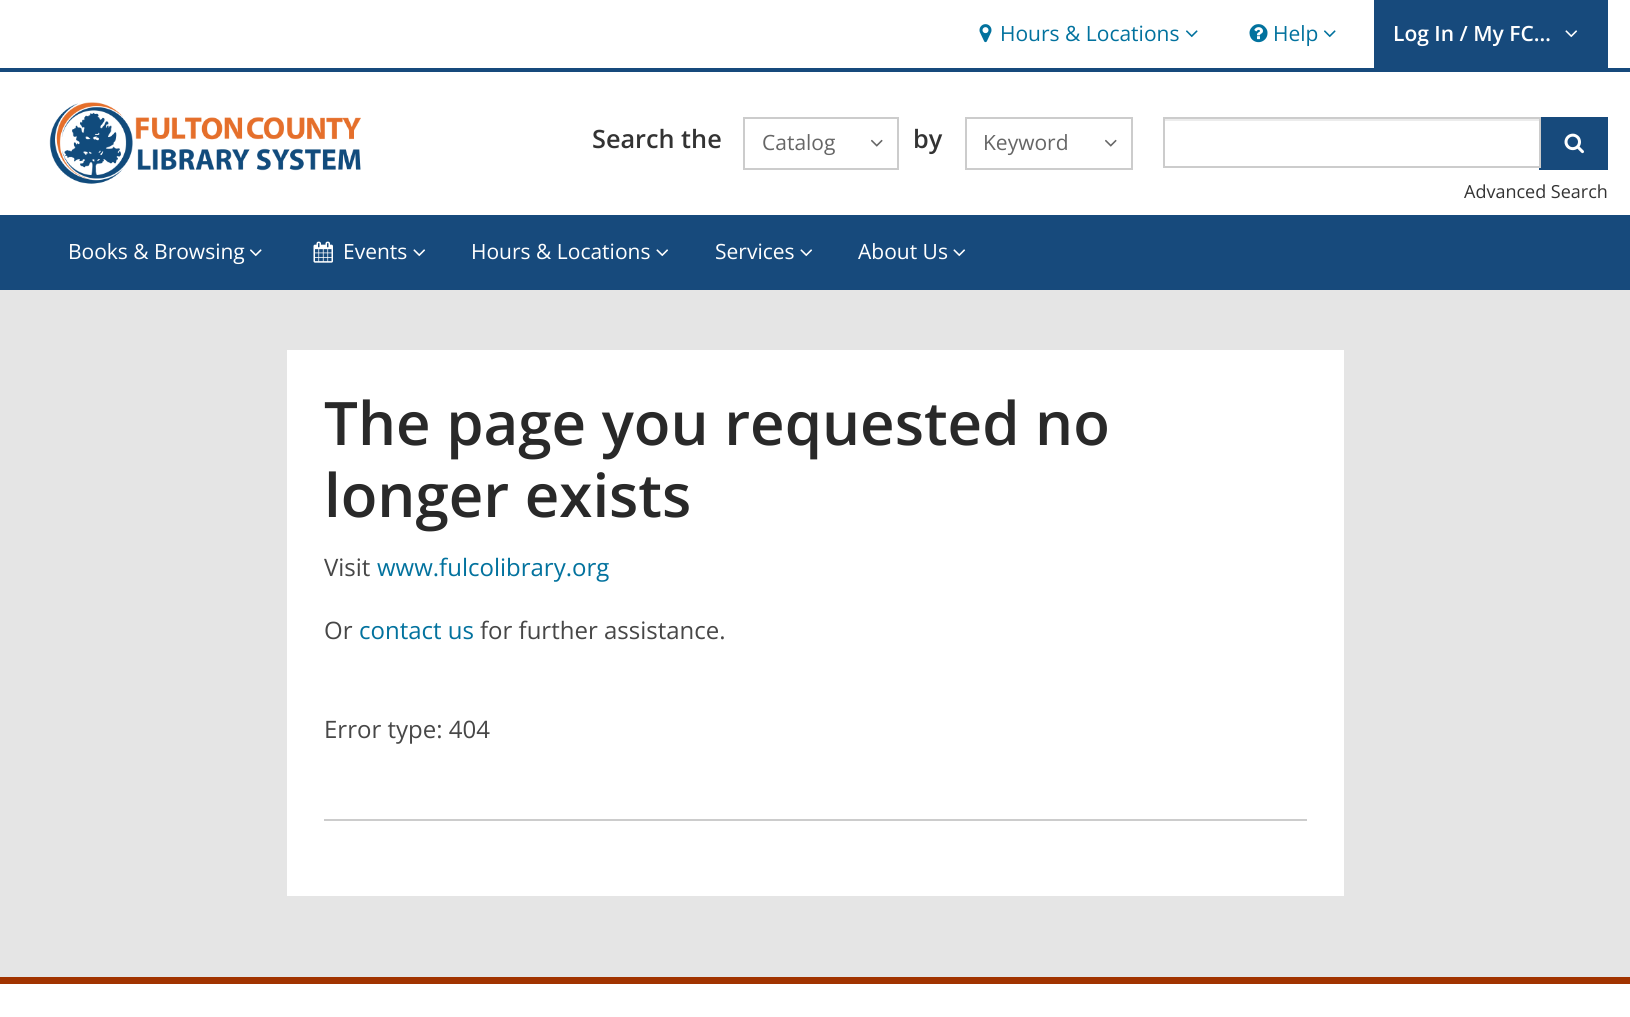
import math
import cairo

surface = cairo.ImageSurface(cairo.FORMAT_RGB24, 1630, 1017)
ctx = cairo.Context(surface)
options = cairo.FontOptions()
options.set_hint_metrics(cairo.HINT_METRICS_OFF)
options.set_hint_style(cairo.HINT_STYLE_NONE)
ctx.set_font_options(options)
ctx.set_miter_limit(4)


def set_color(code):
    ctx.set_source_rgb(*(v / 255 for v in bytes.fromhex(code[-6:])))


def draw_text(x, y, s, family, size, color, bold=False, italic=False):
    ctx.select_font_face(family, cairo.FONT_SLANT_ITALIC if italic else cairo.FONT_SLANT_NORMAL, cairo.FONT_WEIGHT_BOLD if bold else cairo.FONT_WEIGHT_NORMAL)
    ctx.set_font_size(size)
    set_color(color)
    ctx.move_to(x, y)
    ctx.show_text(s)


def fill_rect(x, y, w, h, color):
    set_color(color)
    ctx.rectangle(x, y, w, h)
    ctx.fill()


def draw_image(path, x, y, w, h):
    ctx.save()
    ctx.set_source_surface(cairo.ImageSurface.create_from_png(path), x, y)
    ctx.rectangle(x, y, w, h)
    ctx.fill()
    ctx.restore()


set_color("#e5e5e5")
ctx.paint()
fill_rect(0, 0, 1630, 68, "#ffffff")
fill_rect(0, 68, 1630, 4, "#174a7c")
draw_image("assets/img1.png", 979, 24, 13, 19)
draw_text(1000, 41, "Hours & Locations", "Open Sans", 21, "#02729e")
draw_image("assets/img2.png", 1186, 30, 12, 8)
draw_image("assets/img3.png", 1249, 24, 19, 19)
draw_text(1273, 41, "Help", "Open Sans", 21, "#02729e")
draw_image("assets/img2.png", 1324, 30, 12, 8)
fill_rect(1374, 0, 234, 68, "#174a7c")
draw_text(1393, 41, "Log In / My FC…", "Open Sans SemiBold", 21, "#ffffff")
draw_image("assets/img4.png", 1565, 30, 13, 8)
fill_rect(0, 72, 1630, 143, "#ffffff")
draw_image("assets/img5.png", 49, 102, 312, 82)
draw_text(592, 148, "Search the", "Open Sans SemiBold", 25.25, "#333333")
ctx.rectangle(744, 118, 154, 51)
set_color("#cccccc")
ctx.stroke()
draw_text(762, 150, "Catalog", "Open Sans", 21, "#666666")
draw_image("assets/img6.png", 871, 139, 12, 8)
draw_text(913, 148, "by", "Open Sans SemiBold", 25.25, "#333333")
ctx.rectangle(966, 118, 166, 51)
set_color("#cccccc")
ctx.stroke()
draw_text(983, 150, "Keyword", "Open Sans", 21, "#666666")
draw_image("assets/img6.png", 1105, 139, 12, 8)
fill_rect(1164, 119, 375, 2, "#ececec")
fill_rect(1539, 117, 69, 53, "#174a7c")
ctx.rectangle(1164, 118, 376, 49)
set_color("#cccccc")
ctx.stroke()
draw_image("assets/img7.png", 1564, 133, 20, 21)
draw_text(1464, 198, "Advanced Search", "Open Sans", 18, "#333333")
fill_rect(0, 215, 1630, 75, "#174a7c")
draw_text(68, 259, "Books & Browsing", "Open Sans", 21, "#ffffff")
draw_image("assets/img8.png", 250, 249, 12, 8)
draw_image("assets/img9.png", 313, 241, 20, 22)
draw_text(343, 259, "Events", "Open Sans", 21, "#ffffff")
draw_image("assets/img4.png", 413, 249, 13, 8)
draw_text(471, 259, "Hours & Locations", "Open Sans", 21, "#ffffff")
draw_image("assets/img4.png", 656, 249, 13, 8)
draw_text(715, 259, "Services", "Open Sans", 21, "#ffffff")
draw_image("assets/img4.png", 800, 249, 13, 8)
draw_text(858, 259, "About Us", "Open Sans", 21, "#ffffff")
draw_image("assets/img4.png", 953, 249, 13, 8)
fill_rect(287, 350, 1057, 546, "#ffffff")
fill_rect(324, 819, 983, 2, "#cccccc")
draw_text(324, 445, "The page you requested no", "Open Sans SemiBold", 60, "#292929")
draw_text(324, 517, "longer exists", "Open Sans SemiBold", 60, "#292929")
draw_text(324, 576, "Visit", "Open Sans", 24, "#474747")
draw_text(377, 576, "www.fulcolibrary.org", "Open Sans", 24, "#02729e")
draw_text(324, 639, "Or", "Open Sans", 24, "#474747")
draw_text(359, 639, "contact us", "Open Sans", 24, "#02729e")
draw_text(480, 639, "for further assistance.", "Open Sans", 24, "#474747")
draw_text(324, 738, "Error type: 404", "Open Sans", 24, "#474747")
fill_rect(0, 984, 1630, 33, "#ffffff")
fill_rect(0, 977, 1630, 7, "#a13300")
surface.write_to_png("output.png")
